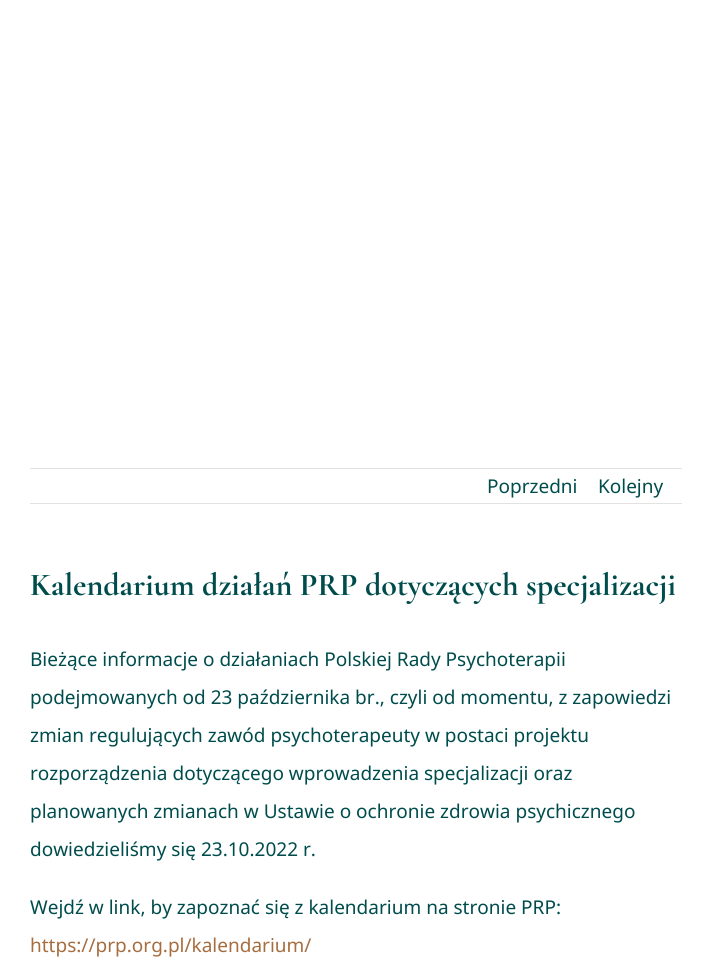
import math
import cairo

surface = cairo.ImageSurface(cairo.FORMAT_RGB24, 712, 969)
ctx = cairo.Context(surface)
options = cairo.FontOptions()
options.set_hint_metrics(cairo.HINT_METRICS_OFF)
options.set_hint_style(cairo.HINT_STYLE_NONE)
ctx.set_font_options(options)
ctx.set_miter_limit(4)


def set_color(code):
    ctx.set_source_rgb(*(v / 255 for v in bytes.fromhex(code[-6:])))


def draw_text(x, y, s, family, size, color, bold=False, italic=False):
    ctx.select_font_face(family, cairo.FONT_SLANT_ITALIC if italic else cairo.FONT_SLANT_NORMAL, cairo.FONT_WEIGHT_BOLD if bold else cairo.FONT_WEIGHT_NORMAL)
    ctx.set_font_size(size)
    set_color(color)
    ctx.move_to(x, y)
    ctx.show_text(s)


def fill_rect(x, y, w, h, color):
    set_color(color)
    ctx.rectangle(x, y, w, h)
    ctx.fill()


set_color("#ffffff")
ctx.paint()
fill_rect(30, 468, 652, 1, "#e2e2e2")
fill_rect(30, 503, 652, 1, "#e2e2e2")
draw_text(487, 493, "Poprzedni", "Noto Sans", 19, "#004c4c")
draw_text(598, 493, "Kolejny", "Noto Sans", 19, "#004c4c")
draw_text(30, 595, "Kalendarium działań PRP dotyczących specjalizacji", "Cormorant Garamond", 32, "#004c4c", bold=True)
draw_text(30, 666, "Bieżące informacje o działaniach Polskiej Rady Psychoterapii", "Noto Sans", 19, "#004c4c")
draw_text(30, 704, "podejmowanych od 23 października br., czyli od momentu, z zapowiedzi", "Noto Sans", 19, "#004c4c")
draw_text(30, 742, "zmian regulujących zawód psychoterapeuty w postaci projektu", "Noto Sans", 19, "#004c4c")
draw_text(30, 780, "rozporządzenia dotyczącego wprowadzenia specjalizacji oraz", "Noto Sans", 19, "#004c4c")
draw_text(30, 818, "planowanych zmianach w Ustawie o ochronie zdrowia psychicznego", "Noto Sans", 19, "#004c4c")
draw_text(30, 856, "dowiedzieliśmy się 23.10.2022 r.", "Noto Sans", 19, "#004c4c")
draw_text(30, 914, "Wejdź w link, by zapoznać się z kalendarium na stronie PRP:", "Noto Sans", 19, "#004c4c")
draw_text(30, 952, "https://prp.org.pl/kalendarium/", "Noto Sans", 19, "#a66d3f")
surface.write_to_png("output.png")
